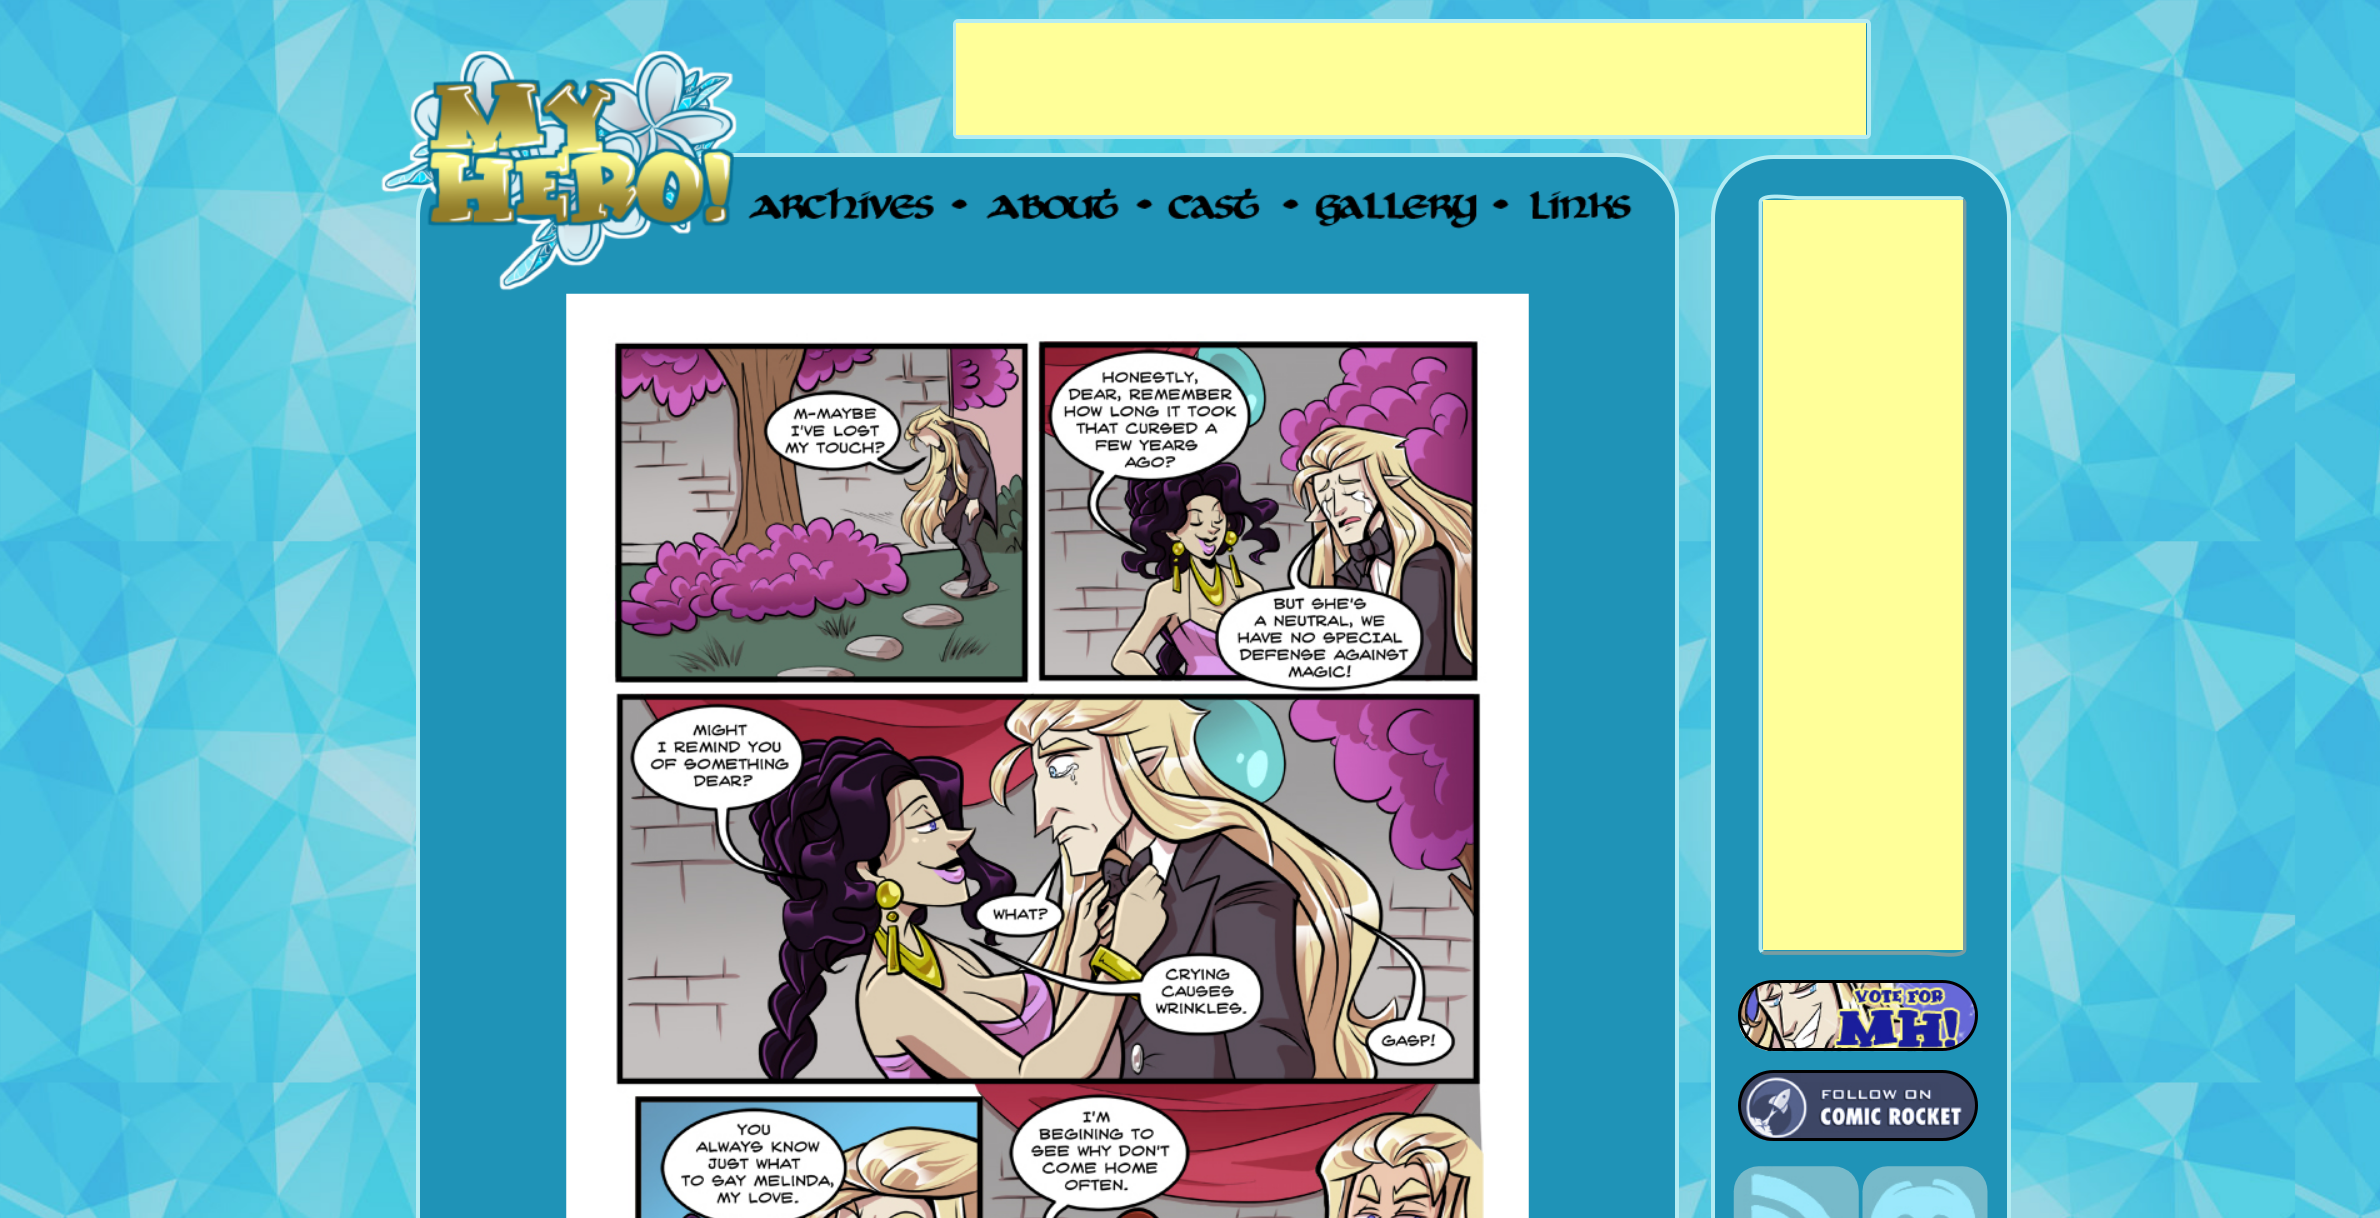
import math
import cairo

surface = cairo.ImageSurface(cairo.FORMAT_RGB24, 2380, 1218)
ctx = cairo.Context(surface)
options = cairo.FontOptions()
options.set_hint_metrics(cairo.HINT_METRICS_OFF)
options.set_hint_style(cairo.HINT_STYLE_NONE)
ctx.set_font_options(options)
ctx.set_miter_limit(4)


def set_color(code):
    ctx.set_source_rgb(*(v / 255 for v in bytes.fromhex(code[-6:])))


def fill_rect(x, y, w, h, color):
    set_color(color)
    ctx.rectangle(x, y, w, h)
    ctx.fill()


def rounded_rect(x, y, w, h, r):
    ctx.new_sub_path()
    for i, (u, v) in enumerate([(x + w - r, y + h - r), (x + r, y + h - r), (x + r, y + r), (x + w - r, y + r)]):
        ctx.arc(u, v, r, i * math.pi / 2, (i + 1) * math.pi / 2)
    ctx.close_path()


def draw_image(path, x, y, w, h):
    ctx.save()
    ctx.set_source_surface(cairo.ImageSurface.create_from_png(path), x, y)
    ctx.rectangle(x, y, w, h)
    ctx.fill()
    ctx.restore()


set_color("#ffffff")
ctx.paint()
draw_image("assets/img1.png", 0, 0, 2380, 1218)
set_color("#1f93b7")
rounded_rect(418, 155, 1259, 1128, 61)
ctx.fill_preserve()
set_color("#b4ecf3")
ctx.set_line_width(4)
ctx.stroke()
draw_image("assets/img2.png", 381, 50, 356, 241)
set_color("#1f93b7")
rounded_rect(955, 21, 914, 116, 3)
ctx.fill_preserve()
set_color("#b4ecf3")
ctx.stroke()
fill_rect(956, 23, 910, 112, "#ffff99")
draw_image("assets/img3.png", 748, 187, 186, 32)
draw_image("assets/img4.png", 951, 198, 17, 11)
draw_image("assets/img5.png", 986, 187, 133, 32)
draw_image("assets/img4.png", 1136, 198, 17, 11)
draw_image("assets/img6.png", 1167, 187, 94, 32)
draw_image("assets/img7.png", 1282, 198, 17, 11)
draw_image("assets/img8.png", 1315, 192, 162, 37)
draw_image("assets/img7.png", 1492, 198, 17, 11)
draw_image("assets/img9.png", 1528, 191, 104, 28)
draw_image("assets/img10.png", 566, 293, 963, 925)
set_color("#1f93b7")
rounded_rect(1713, 157, 296, 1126, 61)
ctx.fill_preserve()
set_color("#b4ecf3")
ctx.stroke()
ctx.new_path()
ctx.move_to(1963, 199.5)
ctx.line_to(1964.5, 202.5)
ctx.line_to(1964.5, 949)
ctx.curve_to(1964.5, 959, 1932, 953, 1927.5, 953)
ctx.line_to(1765, 953)
ctx.line_to(1762, 952)
set_color("#789da2")
ctx.set_line_width(3.8)
ctx.stroke()
ctx.new_path()
ctx.move_to(1762, 952)
ctx.line_to(1760.5, 949)
ctx.line_to(1760.5, 202.5)
ctx.curve_to(1760.5, 192.5, 1793, 198, 1797.5, 198)
ctx.line_to(1960, 198)
ctx.line_to(1963, 199.5)
set_color("#b4ecf3")
ctx.stroke()
fill_rect(1763, 200, 200, 750, "#ffff99")
draw_image("assets/img11.png", 1740, 982, 238, 70)
rounded_rect(1739.5, 981.5, 237, 68, 34)
set_color("#000000")
ctx.set_line_width(3)
ctx.stroke()
draw_image("assets/img12.png", 1740, 1072, 238, 70)
rounded_rect(1739.5, 1071.5, 237, 68, 34)
ctx.stroke()
draw_image("assets/img13.png", 1733, 1166, 126, 52)
draw_image("assets/img14.png", 1862, 1166, 126, 52)
surface.write_to_png("output.png")
